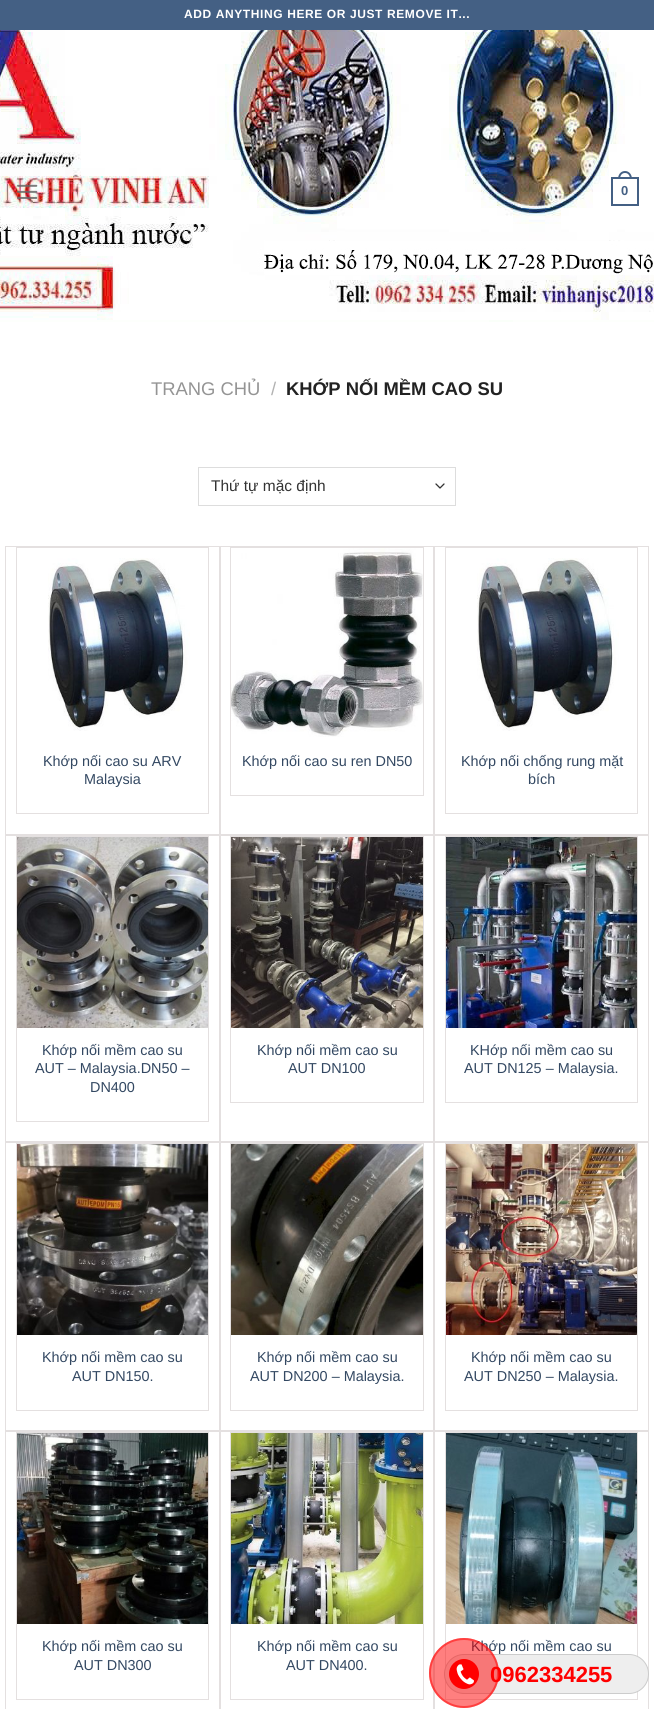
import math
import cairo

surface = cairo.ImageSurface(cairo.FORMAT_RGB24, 654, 1709)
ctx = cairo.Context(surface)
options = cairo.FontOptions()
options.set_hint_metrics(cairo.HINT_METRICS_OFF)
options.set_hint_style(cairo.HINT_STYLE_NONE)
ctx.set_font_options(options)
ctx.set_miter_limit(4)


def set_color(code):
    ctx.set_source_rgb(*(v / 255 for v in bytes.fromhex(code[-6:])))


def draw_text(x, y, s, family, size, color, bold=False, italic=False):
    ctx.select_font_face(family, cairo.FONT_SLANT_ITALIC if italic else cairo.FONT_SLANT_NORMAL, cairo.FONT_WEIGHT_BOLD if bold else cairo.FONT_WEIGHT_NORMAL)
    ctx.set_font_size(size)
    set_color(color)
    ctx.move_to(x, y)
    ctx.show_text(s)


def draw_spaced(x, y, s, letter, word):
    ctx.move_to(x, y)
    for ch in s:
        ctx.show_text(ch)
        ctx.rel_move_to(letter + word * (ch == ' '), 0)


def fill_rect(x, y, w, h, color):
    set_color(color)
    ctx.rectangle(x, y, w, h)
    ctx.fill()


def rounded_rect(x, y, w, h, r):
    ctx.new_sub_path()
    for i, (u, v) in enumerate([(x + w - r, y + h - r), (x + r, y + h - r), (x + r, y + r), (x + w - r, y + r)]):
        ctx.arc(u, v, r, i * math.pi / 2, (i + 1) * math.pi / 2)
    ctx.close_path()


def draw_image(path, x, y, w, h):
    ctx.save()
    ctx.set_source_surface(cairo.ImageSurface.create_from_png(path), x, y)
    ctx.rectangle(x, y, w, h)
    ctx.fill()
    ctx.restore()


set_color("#ffffff")
ctx.paint()
fill_rect(0, 0, 654, 30, "#446084")
ctx.select_font_face("Liberation Sans", cairo.FONT_SLANT_NORMAL, cairo.FONT_WEIGHT_BOLD)
ctx.set_font_size(12)
set_color("#ffffff")
draw_spaced(184, 18, "ADD ANYTHING HERE OR JUST REMOVE IT...", 0.6, 0)
draw_image("assets/img1.png", 0, 30, 654, 292)
draw_image("assets/img2.png", 17, 184, 21, 15)
ctx.rectangle(612, 178, 26, 27)
set_color("#446084")
ctx.stroke()
ctx.set_fill_rule(cairo.FILL_RULE_EVEN_ODD)
ctx.new_path()
ctx.move_to(625, 171)
ctx.curve_to(629.5, 171, 632, 175, 632, 179)
ctx.line_to(618, 179)
ctx.curve_to(618, 175, 620.5, 171, 625, 171)
ctx.close_path()
ctx.move_to(625, 173)
ctx.curve_to(628.5, 173, 630, 176, 630, 179)
ctx.line_to(620, 179)
ctx.curve_to(620, 176, 621.5, 173, 625, 173)
ctx.close_path()
ctx.fill()
draw_text(621, 195, "0", "Liberation Sans", 13, "#446084", bold=True)
draw_text(151, 395, "TRANG CHỦ", "Liberation Sans", 18.4, "#949494")
draw_text(271, 395, "/", "Liberation Sans", 18.4, "#b2b2b2")
draw_text(286, 395, "KHỚP NỐI MỀM CAO SU", "Liberation Sans", 18.4, "#222222", bold=True)
ctx.new_path()
ctx.move_to(436, 484)
ctx.line_to(440, 488)
ctx.line_to(444, 484)
set_color("#333333")
ctx.set_line_width(1.3)
ctx.set_line_cap(cairo.LINE_CAP_ROUND)
ctx.set_line_join(cairo.LINE_JOIN_ROUND)
ctx.stroke()
ctx.rectangle(198.5, 467.5, 257, 38)
set_color("#dddddd")
ctx.set_line_width(1)
ctx.set_line_cap(cairo.LINE_CAP_BUTT)
ctx.set_line_join(cairo.LINE_JOIN_MITER)
ctx.stroke()
draw_text(211, 491, "Thứ tự mặc định", "Liberation Sans", 15.5, "#333333")
ctx.rectangle(5.5, 546.5, 214, 288)
set_color("#e4e0e0")
ctx.stroke()
ctx.rectangle(16.5, 547.5, 192, 266)
ctx.stroke()
draw_image("assets/img3.png", 48, 558, 142, 173)
draw_text(43, 766, "Khớp nối cao su ARV", "Liberation Sans", 14.4, "#334862")
draw_text(84, 784, "Malaysia", "Liberation Sans", 14.4, "#334862")
ctx.rectangle(220.5, 546.5, 213, 288)
set_color("#e4e0e0")
ctx.stroke()
ctx.rectangle(230.5, 547.5, 193, 248)
ctx.stroke()
draw_image("assets/img4.png", 231, 548, 192, 189)
draw_text(242, 766, "Khớp nối cao su ren DN50", "Liberation Sans", 14.4, "#334862")
ctx.rectangle(434.5, 546.5, 214, 288)
set_color("#e4e0e0")
ctx.stroke()
ctx.rectangle(445.5, 547.5, 192, 266)
ctx.stroke()
draw_image("assets/img3.png", 477, 558, 142, 173)
draw_text(461, 766, "Khớp nối chống rung mặt", "Liberation Sans", 14.4, "#334862")
draw_text(528, 784, "bích", "Liberation Sans", 14.4, "#334862")
ctx.rectangle(5.5, 835.5, 214, 306)
set_color("#e4e0e0")
ctx.stroke()
ctx.rectangle(16.5, 836.5, 192, 285)
ctx.stroke()
draw_image("assets/img5.png", 17, 837, 191, 191)
draw_text(42, 1055, "Khớp nối mềm cao su", "Liberation Sans", 14.4, "#334862")
draw_text(35, 1073, "AUT – Malaysia.DN50 –", "Liberation Sans", 14.4, "#334862")
draw_text(90, 1092, "DN400", "Liberation Sans", 14.4, "#334862")
ctx.rectangle(220.5, 835.5, 213, 306)
set_color("#e4e0e0")
ctx.stroke()
ctx.rectangle(230.5, 836.5, 193, 266)
ctx.stroke()
draw_image("assets/img6.png", 231, 837, 192, 191)
draw_text(257, 1055, "Khớp nối mềm cao su", "Liberation Sans", 14.4, "#334862")
draw_text(288, 1073, "AUT DN100", "Liberation Sans", 14.4, "#334862")
ctx.rectangle(434.5, 835.5, 214, 306)
set_color("#e4e0e0")
ctx.stroke()
ctx.rectangle(445.5, 836.5, 192, 266)
ctx.stroke()
draw_image("assets/img7.png", 446, 837, 191, 191)
draw_text(470, 1055, "KHớp nối mềm cao su", "Liberation Sans", 14.4, "#334862")
draw_text(464, 1073, "AUT DN125 – Malaysia.", "Liberation Sans", 14.4, "#334862")
ctx.rectangle(5.5, 1142.5, 214, 288)
set_color("#e4e0e0")
ctx.stroke()
ctx.rectangle(16.5, 1143.5, 192, 267)
ctx.stroke()
draw_image("assets/img8.png", 17, 1144, 191, 191)
draw_text(42, 1362, "Khớp nối mềm cao su", "Liberation Sans", 14.4, "#334862")
draw_text(72, 1381, "AUT DN150.", "Liberation Sans", 14.4, "#334862")
ctx.rectangle(220.5, 1142.5, 213, 288)
set_color("#e4e0e0")
ctx.stroke()
ctx.rectangle(230.5, 1143.5, 193, 267)
ctx.stroke()
draw_image("assets/img9.png", 231, 1144, 192, 191)
draw_text(257, 1362, "Khớp nối mềm cao su", "Liberation Sans", 14.4, "#334862")
draw_text(250, 1381, "AUT DN200 – Malaysia.", "Liberation Sans", 14.4, "#334862")
ctx.rectangle(434.5, 1142.5, 214, 288)
set_color("#e4e0e0")
ctx.stroke()
ctx.rectangle(445.5, 1143.5, 192, 267)
ctx.stroke()
draw_image("assets/img10.png", 446, 1144, 191, 191)
draw_text(471, 1362, "Khớp nối mềm cao su", "Liberation Sans", 14.4, "#334862")
draw_text(464, 1381, "AUT DN250 – Malaysia.", "Liberation Sans", 14.4, "#334862")
ctx.rectangle(5.5, 1431.5, 214, 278)
set_color("#e4e0e0")
ctx.stroke()
ctx.rectangle(16.5, 1432.5, 192, 267)
ctx.stroke()
draw_image("assets/img11.png", 17, 1433, 191, 191)
draw_text(42, 1651, "Khớp nối mềm cao su", "Liberation Sans", 14.4, "#334862")
draw_text(74, 1670, "AUT DN300", "Liberation Sans", 14.4, "#334862")
ctx.rectangle(220.5, 1431.5, 213, 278)
set_color("#e4e0e0")
ctx.stroke()
ctx.rectangle(230.5, 1432.5, 193, 267)
ctx.stroke()
draw_image("assets/img12.png", 231, 1433, 192, 191)
draw_text(257, 1651, "Khớp nối mềm cao su", "Liberation Sans", 14.4, "#334862")
draw_text(286, 1670, "AUT DN400.", "Liberation Sans", 14.4, "#334862")
ctx.rectangle(434.5, 1431.5, 214, 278)
set_color("#e4e0e0")
ctx.stroke()
ctx.rectangle(445.5, 1432.5, 192, 267)
ctx.stroke()
draw_image("assets/img13.png", 446, 1433, 191, 191)
draw_text(471, 1651, "Khớp nối mềm cao su", "Liberation Sans", 14.4, "#334862")
set_color("#eeeeee")
rounded_rect(444.5, 1654.5, 204, 39, 19.5)
ctx.fill_preserve()
set_color("#cccccc")
ctx.stroke()
draw_text(490, 1682, "0962334255", "Liberation Sans", 22, "#ff0000", bold=True)
ctx.set_source_rgba(1, 0, 0, 0.5)
ctx.new_path()
ctx.arc(464, 1673, 35, 0, 2 * math.pi)
ctx.fill()
ctx.arc(464, 1673, 34, 0, 2 * math.pi)
ctx.set_line_width(2)
ctx.stroke()
set_color("#ff0000")
ctx.arc(464, 1674, 15, 0, 2 * math.pi)
ctx.fill()
draw_image("assets/img14.png", 456, 1664, 18, 21)
surface.write_to_png("output.png")
